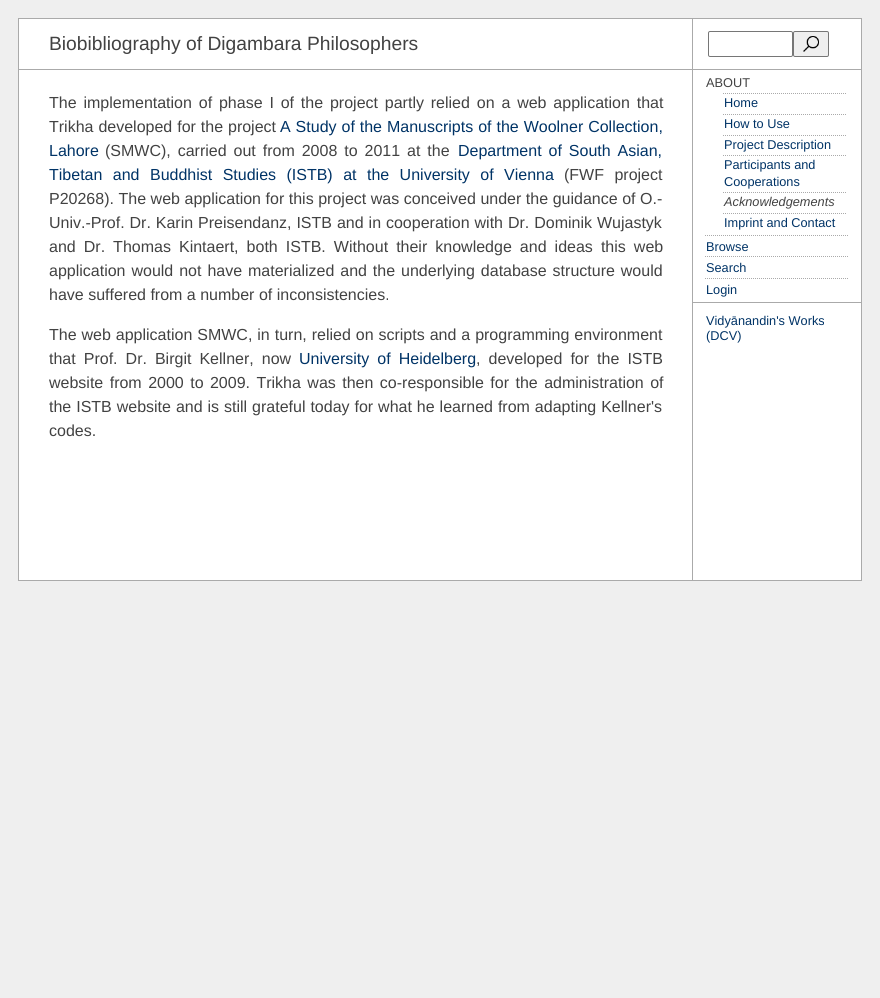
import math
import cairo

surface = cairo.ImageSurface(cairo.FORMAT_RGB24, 880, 998)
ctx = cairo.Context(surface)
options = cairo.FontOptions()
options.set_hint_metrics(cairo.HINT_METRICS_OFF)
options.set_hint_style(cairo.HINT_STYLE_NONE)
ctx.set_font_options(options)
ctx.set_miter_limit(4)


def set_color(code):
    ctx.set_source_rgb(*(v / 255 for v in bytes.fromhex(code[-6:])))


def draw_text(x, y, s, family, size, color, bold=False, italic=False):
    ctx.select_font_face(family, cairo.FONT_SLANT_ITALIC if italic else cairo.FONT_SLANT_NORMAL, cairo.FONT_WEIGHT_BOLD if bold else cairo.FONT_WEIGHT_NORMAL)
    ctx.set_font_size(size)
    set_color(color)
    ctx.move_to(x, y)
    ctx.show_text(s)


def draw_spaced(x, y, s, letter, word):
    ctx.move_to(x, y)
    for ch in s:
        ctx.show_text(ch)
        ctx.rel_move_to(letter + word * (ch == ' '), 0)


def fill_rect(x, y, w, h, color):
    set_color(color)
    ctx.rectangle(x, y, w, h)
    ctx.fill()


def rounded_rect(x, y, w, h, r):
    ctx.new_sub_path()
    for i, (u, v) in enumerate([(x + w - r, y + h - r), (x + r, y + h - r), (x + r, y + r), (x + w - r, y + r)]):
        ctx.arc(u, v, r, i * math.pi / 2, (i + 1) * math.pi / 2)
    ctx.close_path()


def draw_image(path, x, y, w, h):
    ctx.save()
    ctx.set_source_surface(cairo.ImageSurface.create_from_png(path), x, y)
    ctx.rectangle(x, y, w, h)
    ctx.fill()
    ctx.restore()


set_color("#efefef")
ctx.paint()
fill_rect(19, 19, 673, 50, "#ffffff")
fill_rect(18, 18, 844, 1, "#aaaaaa")
fill_rect(692, 18, 1, 51, "#aaaaaa")
fill_rect(18, 18, 1, 51, "#aaaaaa")
draw_text(49, 50, "Biobibliography of Digambara Philosophers", "Liberation Sans", 19.25, "#424242")
fill_rect(19, 70, 673, 510, "#ffffff")
fill_rect(692, 570, 1, 11, "#aaaaaa")
fill_rect(18, 580, 675, 1, "#aaaaaa")
fill_rect(18, 570, 1, 11, "#aaaaaa")
fill_rect(18, 69, 844, 1, "#aaaaaa")
fill_rect(692, 69, 1, 501, "#aaaaaa")
fill_rect(18, 69, 1, 501, "#aaaaaa")
ctx.set_font_size(16)
set_color("#424242")
draw_spaced(49, 108, "The implementation of phase I of the project partly relied on a web application that", 0, 2.4)
draw_spaced(49, 132, "Trikha developed for the project", 0, 0.5)
set_color("#003366")
draw_spaced(280, 132, "A Study of the Manuscripts of the Woolner Collection,", 0, 0.5)
draw_text(49, 156, "Lahore", "Liberation Sans", 16, "#003366")
set_color("#424242")
draw_spaced(105, 156, "(SMWC), carried out from 2008 to 2011 at the", 0, 2.5)
set_color("#003366")
draw_spaced(458, 156, "Department of South Asian,", 0, 2.5)
draw_spaced(49, 180, "Tibetan and Buddhist Studies (ISTB) at the University of Vienna", 0, 6)
set_color("#424242")
draw_spaced(564, 180, "(FWF project", 0, 6)
draw_spaced(49, 204, "P20268). The web application for this project was conceived under the guidance of O.-", 0, 0.1)
draw_spaced(49, 228, "Univ.-Prof. Dr. Karin Preisendanz, ISTB and in cooperation with Dr. Dominik Wujastyk", 0, 0.5)
draw_spaced(49, 252, "and Dr. Thomas Kintaert, both ISTB. Without their knowledge and ideas this web", 0, 3.6)
draw_spaced(49, 276, "application would not have materialized and the underlying database structure would", 0, 1.5)
draw_text(49, 300, "have suffered from a number of inconsistencies.", "Liberation Sans", 16, "#424242")
draw_spaced(49, 340, "The web application SMWC, in turn, relied on scripts and a programming environment", 0, 0.5)
draw_spaced(49, 364, "that Prof. Dr. Birgit Kellner, now", 0, 3.6)
set_color("#003366")
draw_spaced(299, 364, "University of Heidelberg", 0, 3.6)
set_color("#424242")
draw_spaced(476, 364, ", developed for the ISTB", 0, 3.6)
draw_spaced(49, 388, "website from 2000 to 2009. Trikha was then co-responsible for the administration of", 0, 2)
draw_spaced(49, 412, "the ISTB website and is still grateful today for what he learned from adapting Kellner's", 0, 0.5)
draw_text(49, 436, "codes.", "Liberation Sans", 16, "#424242")
fill_rect(693, 19, 168, 50, "#ffffff")
fill_rect(861, 18, 1, 285, "#aaaaaa")
rounded_rect(708.5, 31.5, 84, 25, 1.5)
set_color("#767676")
ctx.set_line_width(1)
ctx.stroke()
set_color("#efefef")
rounded_rect(793.5, 31.5, 35, 25, 1.5)
ctx.fill_preserve()
set_color("#767676")
ctx.stroke()
draw_image("assets/img1.png", 803, 36, 16, 16)
fill_rect(693, 70, 168, 232, "#ffffff")
fill_rect(693, 302, 169, 1, "#aaaaaa")
ctx.new_path()
ctx.move_to(705, 235.5)
ctx.line_to(849, 235.5)
ctx.set_dash([1, 1])
ctx.stroke()
draw_text(706, 87, "ABOUT", "Liberation Sans", 12.75, "#424242")
ctx.new_path()
ctx.move_to(723, 93.5)
ctx.line_to(846, 93.5)
set_color("#aaaaaa")
ctx.stroke()
draw_text(724, 107, "Home", "Liberation Sans", 12.75, "#003366")
ctx.new_path()
ctx.move_to(723, 114.5)
ctx.line_to(846, 114.5)
set_color("#aaaaaa")
ctx.stroke()
draw_text(724, 128, "How to Use", "Liberation Sans", 12.75, "#003366")
ctx.new_path()
ctx.move_to(723, 135.5)
ctx.line_to(846, 135.5)
set_color("#aaaaaa")
ctx.stroke()
draw_text(724, 149, "Project Description", "Liberation Sans", 12.75, "#003366")
ctx.new_path()
ctx.move_to(723, 155.5)
ctx.line_to(846, 155.5)
set_color("#aaaaaa")
ctx.stroke()
draw_text(724, 169, "Participants and", "Liberation Sans", 12.75, "#003366")
draw_text(724, 186, "Cooperations", "Liberation Sans", 12.75, "#003366")
ctx.new_path()
ctx.move_to(723, 192.5)
ctx.line_to(846, 192.5)
set_color("#aaaaaa")
ctx.stroke()
draw_text(724, 206, "Acknowledgements", "Liberation Sans", 12.75, "#424242", italic=True)
ctx.new_path()
ctx.move_to(723, 213.5)
ctx.line_to(846, 213.5)
set_color("#aaaaaa")
ctx.stroke()
draw_text(724, 227, "Imprint and Contact", "Liberation Sans", 12.75, "#003366")
ctx.new_path()
ctx.move_to(705, 256.5)
ctx.line_to(849, 256.5)
set_color("#aaaaaa")
ctx.stroke()
draw_text(706, 251, "Browse", "Liberation Sans", 12.75, "#003366")
ctx.new_path()
ctx.move_to(705, 278.5)
ctx.line_to(849, 278.5)
set_color("#aaaaaa")
ctx.stroke()
draw_text(706, 272, "Search", "Liberation Sans", 12.75, "#003366")
draw_text(706, 294, "Login", "Liberation Sans", 12.75, "#003366")
fill_rect(693, 303, 168, 277, "#ffffff")
fill_rect(861, 303, 1, 278, "#aaaaaa")
fill_rect(693, 580, 169, 1, "#aaaaaa")
draw_text(706, 325, "Vidyānandin's Works", "Liberation Sans", 12.75, "#003366")
draw_text(706, 340, "(DCV)", "Liberation Sans", 12.75, "#003366")
surface.write_to_png("output.png")
